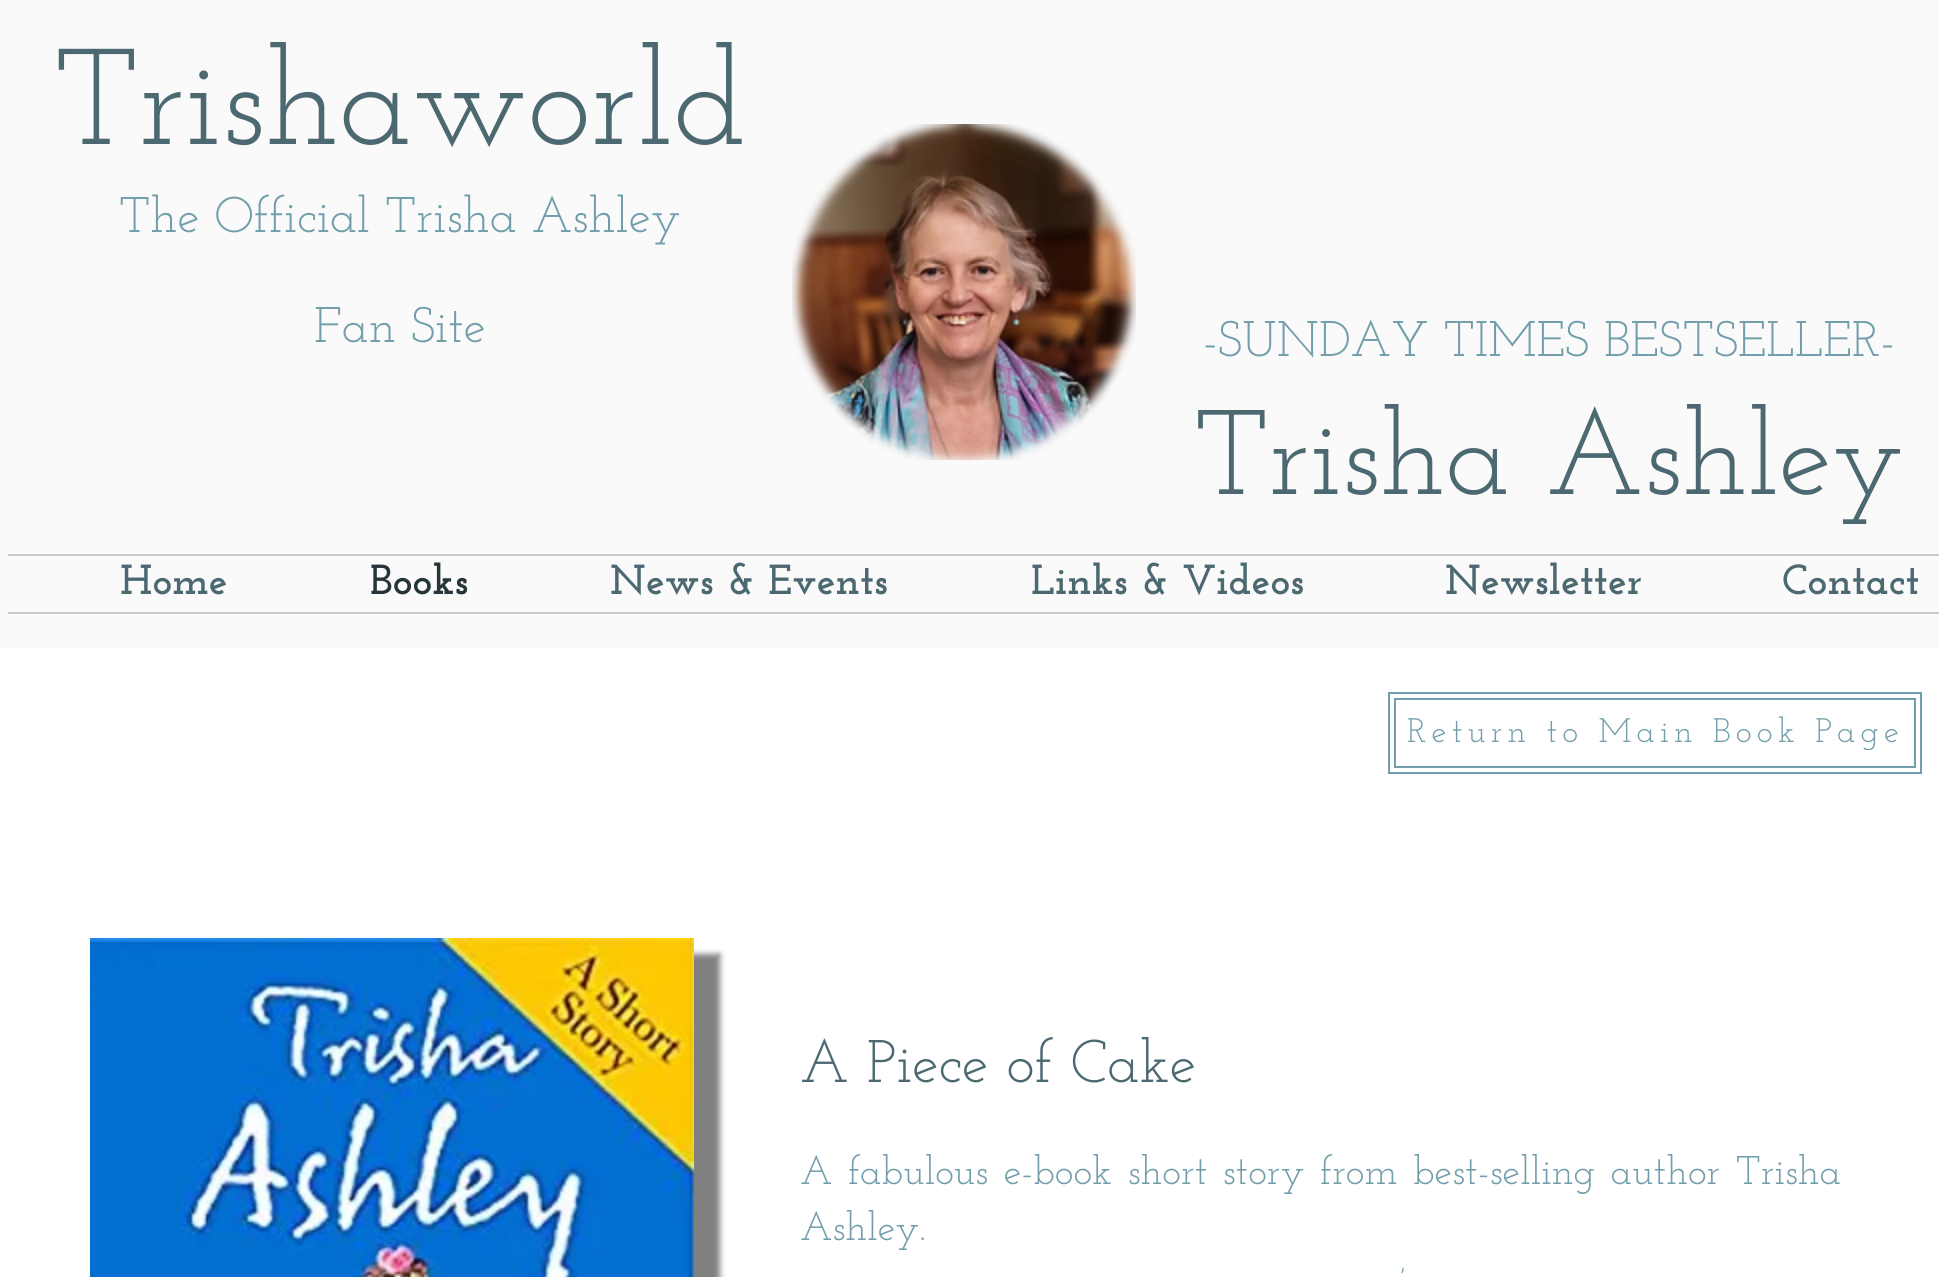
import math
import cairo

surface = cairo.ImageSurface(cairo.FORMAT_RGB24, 1939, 1277)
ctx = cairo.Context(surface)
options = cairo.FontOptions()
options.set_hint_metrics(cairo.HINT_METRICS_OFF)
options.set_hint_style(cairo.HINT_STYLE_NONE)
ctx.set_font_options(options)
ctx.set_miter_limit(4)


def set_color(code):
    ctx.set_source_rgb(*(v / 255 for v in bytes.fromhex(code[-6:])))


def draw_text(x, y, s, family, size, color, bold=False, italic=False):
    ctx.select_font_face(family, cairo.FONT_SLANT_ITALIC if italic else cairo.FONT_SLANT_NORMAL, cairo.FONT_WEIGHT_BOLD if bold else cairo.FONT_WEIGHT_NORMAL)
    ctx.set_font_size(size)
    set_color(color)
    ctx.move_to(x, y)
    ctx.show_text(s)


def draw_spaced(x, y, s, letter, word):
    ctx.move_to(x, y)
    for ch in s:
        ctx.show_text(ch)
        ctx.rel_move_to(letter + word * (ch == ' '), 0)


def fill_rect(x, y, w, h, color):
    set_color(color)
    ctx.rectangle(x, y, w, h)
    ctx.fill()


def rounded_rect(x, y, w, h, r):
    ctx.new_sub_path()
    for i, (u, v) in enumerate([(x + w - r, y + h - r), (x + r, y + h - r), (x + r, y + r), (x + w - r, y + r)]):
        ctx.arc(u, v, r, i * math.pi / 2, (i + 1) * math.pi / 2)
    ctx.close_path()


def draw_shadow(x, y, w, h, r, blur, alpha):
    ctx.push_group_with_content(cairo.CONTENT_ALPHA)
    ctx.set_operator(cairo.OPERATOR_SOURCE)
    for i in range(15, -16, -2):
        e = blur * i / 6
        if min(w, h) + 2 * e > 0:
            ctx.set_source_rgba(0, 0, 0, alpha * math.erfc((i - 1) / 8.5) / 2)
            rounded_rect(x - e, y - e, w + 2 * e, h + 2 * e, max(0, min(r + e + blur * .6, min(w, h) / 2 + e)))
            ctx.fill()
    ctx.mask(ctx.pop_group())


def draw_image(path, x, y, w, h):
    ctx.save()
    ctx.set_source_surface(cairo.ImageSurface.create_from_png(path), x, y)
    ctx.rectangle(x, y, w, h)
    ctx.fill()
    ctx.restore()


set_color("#ffffff")
ctx.paint()
fill_rect(0, 0, 1939, 648, "#fafafa")
draw_text(54, 144, "Trishaworld", "Josefin Slab", 136, "#4c6972")
draw_text(119, 232, "The Official Trisha Ashley", "Josefin Slab", 50, "#729eab")
draw_text(314, 342, "Fan Site", "Josefin Slab", 50, "#729eab")
draw_image("assets/img1.png", 792, 124, 344, 336)
draw_text(1203, 356, "-SUNDAY TIMES BESTSELLER-", "Josefin Slab", 50, "#729eab")
draw_text(1194, 494, "Trisha Ashley", "Josefin Slab", 120, "#4c6972")
fill_rect(8, 554, 1931, 2, "#cacaca")
fill_rect(8, 612, 1931, 2, "#cacaca")
draw_text(120, 594, "Home", "Josefin Slab", 42, "#4c6972", bold=True)
draw_text(370, 594, "Books", "Josefin Slab", 42, "#263539", bold=True)
draw_text(610, 594, "News & Events", "Josefin Slab", 42, "#4c6972", bold=True)
draw_text(1031, 594, "Links & Videos", "Josefin Slab", 42, "#4c6972", bold=True)
draw_text(1445, 594, "Newsletter", "Josefin Slab", 42, "#4c6972", bold=True)
draw_text(1782, 594, "Contact", "Josefin Slab", 42, "#4c6972", bold=True)
ctx.rectangle(1389, 693, 532, 80)
set_color("#729eab")
ctx.stroke()
ctx.rectangle(1395, 699, 520, 68)
ctx.stroke()
ctx.save()
ctx.rectangle(1406, 716, 498, 34)
ctx.clip()
ctx.select_font_face("Josefin Slab")
ctx.set_font_size(34)
draw_spaced(1407, 742, "Return to Main Book Page", 5.1, 0)
ctx.restore()
set_color("#000000")
draw_shadow(112, 954, 608, 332, 0, 3, 0.5)
draw_image("assets/img2.png", 90, 938, 604, 339)
draw_text(800, 1082, "A Piece of Cake", "Josefin Slab", 60, "#4c6972")
ctx.set_font_size(40)
set_color("#729eab")
draw_spaced(800, 1184, "A fabulous e-book short story from best-selling author Trisha", 0, 3.5)
draw_text(800, 1240, "Ashley.", "Josefin Slab", 40, "#729eab")
draw_spaced(1399, 1296, "’", 0, 3)
surface.write_to_png("output.png")
